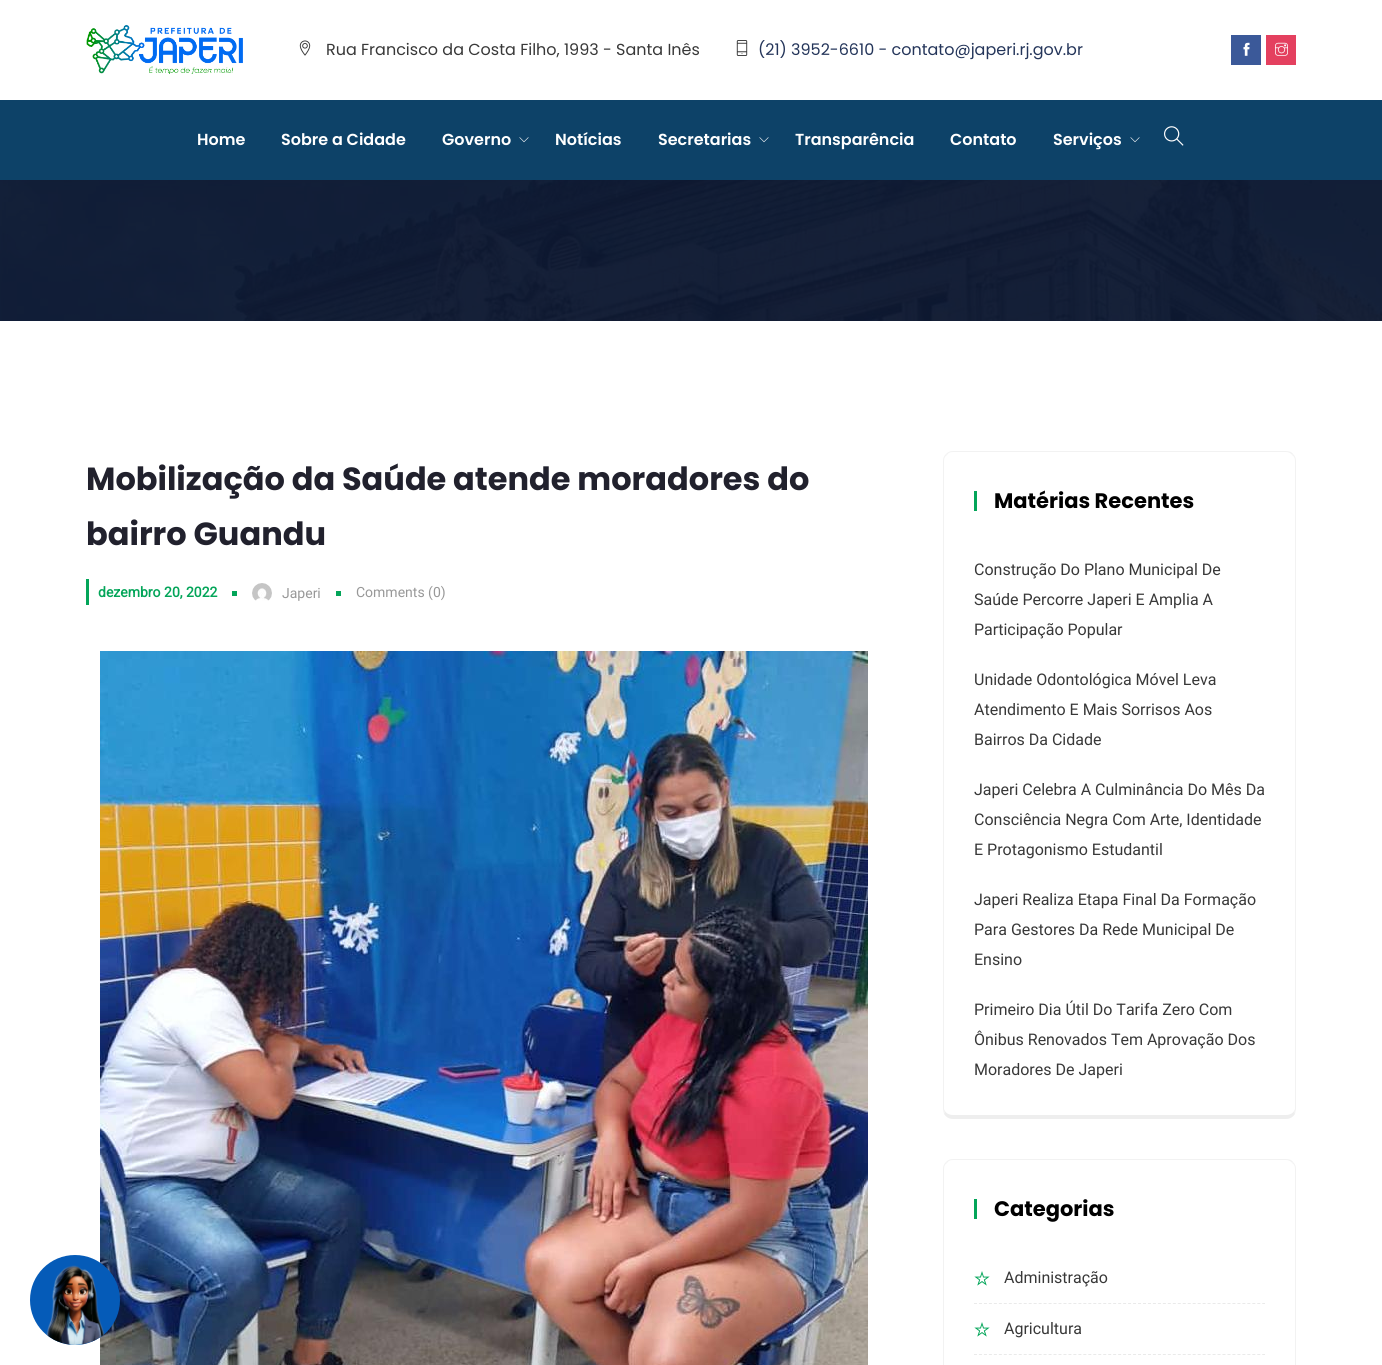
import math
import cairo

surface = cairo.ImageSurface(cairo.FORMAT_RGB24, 1382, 1365)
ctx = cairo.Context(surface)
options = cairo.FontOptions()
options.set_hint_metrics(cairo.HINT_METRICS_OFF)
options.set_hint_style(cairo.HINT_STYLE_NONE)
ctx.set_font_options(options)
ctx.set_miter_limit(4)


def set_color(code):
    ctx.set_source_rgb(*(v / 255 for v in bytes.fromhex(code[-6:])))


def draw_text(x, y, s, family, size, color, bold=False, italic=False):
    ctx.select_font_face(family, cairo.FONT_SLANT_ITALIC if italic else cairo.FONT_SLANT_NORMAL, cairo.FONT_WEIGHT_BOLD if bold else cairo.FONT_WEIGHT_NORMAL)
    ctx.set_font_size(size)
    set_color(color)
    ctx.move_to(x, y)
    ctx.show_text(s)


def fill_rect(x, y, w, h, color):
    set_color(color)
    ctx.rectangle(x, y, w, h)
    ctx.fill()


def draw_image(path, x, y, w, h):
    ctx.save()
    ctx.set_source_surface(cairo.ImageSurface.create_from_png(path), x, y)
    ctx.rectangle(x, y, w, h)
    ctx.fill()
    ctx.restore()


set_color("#ffffff")
ctx.paint()
draw_image("assets/img11.png", 100, 651, 768, 714)
set_color("#055bb8")
ctx.arc(75, 1300, 45, 0, 2 * math.pi)
ctx.fill()
draw_image("assets/img1.png", 46, 1265, 59, 80)
draw_image("assets/img2.png", 86, 24, 157, 50)
draw_image("assets/img3.png", 299, 40, 12, 16)
draw_text(326, 55, "Rua Francisco da Costa Filho, 1993 - Santa Inês", "Poppins", 16, "#383838")
draw_image("assets/img4.png", 736, 40, 12, 16)
draw_text(758, 55, "(21) 3952-6610 - contato@japeri.rj.gov.br", "Poppins", 16, "#24355a")
fill_rect(1231, 35, 30, 30, "#3b5999")
draw_image("assets/img5.png", 1243, 42, 7, 14)
fill_rect(1266, 35, 30, 30, "#e4405f")
draw_image("assets/img6.png", 1275, 42, 13, 14)
fill_rect(0, 100, 1382, 80, "#0d4268")
draw_text(197, 145, "Home", "Poppins SemiBold", 16, "#ffffff")
draw_text(281, 145, "Sobre a Cidade", "Poppins SemiBold", 16, "#ffffff")
draw_text(442, 145, "Governo", "Poppins SemiBold", 16, "#ffffff")
draw_image("assets/img7.png", 519, 137, 10, 6)
draw_text(555, 145, "Notícias", "Poppins SemiBold", 16, "#ffffff")
draw_text(658, 145, "Secretarias", "Poppins SemiBold", 16, "#ffffff")
draw_image("assets/img7.png", 759, 137, 10, 6)
draw_text(795, 145, "Transparência", "Poppins SemiBold", 16, "#ffffff")
draw_text(950, 145, "Contato", "Poppins SemiBold", 16, "#ffffff")
draw_text(1053, 145, "Serviços", "Poppins SemiBold", 16, "#ffffff")
draw_image("assets/img7.png", 1130, 137, 10, 6)
draw_image("assets/img8.png", 1164, 126, 20, 20)
draw_image("assets/img9.png", 0, 180, 1382, 141)
draw_text(86, 490, "Mobilização da Saúde atende moradores do", "Poppins", 32, "#21212d", bold=True)
draw_text(86, 545, "bairro Guandu", "Poppins", 32, "#21212d", bold=True)
fill_rect(86, 579, 3, 26, "#03a559")
draw_text(98, 597, "dezembro 20, 2022", "Roboto", 14, "#03a559", bold=True)
fill_rect(232, 591, 5, 5, "#03a559")
draw_image("assets/img10.png", 252, 583, 20, 18)
draw_text(282, 598, "Japeri", "Roboto", 14, "#989898")
fill_rect(336, 591, 5, 5, "#03a559")
draw_text(356, 597, "Comments (0)", "Roboto", 14, "#989898")
set_color("#f2f2f2")
ctx.new_path()
ctx.move_to(953, 451)
ctx.curve_to(950, 451, 948, 452, 946, 454)
ctx.line_to(947, 455)
ctx.curve_to(948, 453, 950, 452, 953, 452)
ctx.line_to(1286, 452)
ctx.curve_to(1288, 452, 1291, 453, 1292, 455)
ctx.line_to(1293, 454)
ctx.curve_to(1292, 452, 1289, 451, 1286, 451)
ctx.close_path()
ctx.fill()
ctx.new_path()
ctx.move_to(1296, 1109)
ctx.line_to(1296, 461)
ctx.curve_to(1296, 458, 1295, 456, 1293, 454)
ctx.line_to(1292, 455)
ctx.curve_to(1294, 456, 1295, 458, 1295, 461)
ctx.line_to(1295, 1109)
ctx.line_to(1294, 1111)
ctx.line_to(1295, 1114)
ctx.close_path()
ctx.fill()
set_color("#eeeeee")
ctx.new_path()
ctx.move_to(953, 1119)
ctx.line_to(1286, 1119)
ctx.curve_to(1290, 1119, 1293, 1117, 1295, 1114)
ctx.line_to(1294, 1111)
ctx.curve_to(1293, 1113, 1290, 1115, 1286, 1115)
ctx.line_to(953, 1115)
ctx.curve_to(949, 1115, 946, 1113, 945, 1111)
ctx.line_to(944, 1114)
ctx.curve_to(946, 1117, 949, 1119, 953, 1119)
ctx.close_path()
ctx.fill()
set_color("#f2f2f2")
ctx.new_path()
ctx.move_to(943, 461)
ctx.line_to(943, 1109)
ctx.line_to(944, 1114)
ctx.line_to(945, 1111)
ctx.line_to(944, 1109)
ctx.line_to(944, 461)
ctx.curve_to(944, 458, 945, 456, 947, 455)
ctx.line_to(946, 454)
ctx.curve_to(944, 456, 943, 458, 943, 461)
ctx.close_path()
ctx.fill()
fill_rect(974, 491, 3, 20, "#03a559")
draw_text(994, 508, "Matérias Recentes", "Poppins", 21, "#000000", bold=True)
draw_text(974, 575, "Construção Do Plano Municipal De", "Roboto", 16, "#383838")
draw_text(974, 605, "Saúde Percorre Japeri E Amplia A", "Roboto", 16, "#383838")
draw_text(974, 635, "Participação Popular", "Roboto", 16, "#383838")
draw_text(974, 685, "Unidade Odontológica Móvel Leva", "Roboto", 16, "#383838")
draw_text(974, 715, "Atendimento E Mais Sorrisos Aos", "Roboto", 16, "#383838")
draw_text(974, 745, "Bairros Da Cidade", "Roboto", 16, "#383838")
draw_text(974, 795, "Japeri Celebra A Culminância Do Mês Da", "Roboto", 16, "#383838")
draw_text(974, 825, "Consciência Negra Com Arte, Identidade", "Roboto", 16, "#383838")
draw_text(974, 855, "E Protagonismo Estudantil", "Roboto", 16, "#383838")
draw_text(974, 905, "Japeri Realiza Etapa Final Da Formação", "Roboto", 16, "#383838")
draw_text(974, 935, "Para Gestores Da Rede Municipal De", "Roboto", 16, "#383838")
draw_text(974, 965, "Ensino", "Roboto", 16, "#383838")
draw_text(974, 1015, "Primeiro Dia Útil Do Tarifa Zero Com", "Roboto", 16, "#383838")
draw_text(974, 1045, "Ônibus Renovados Tem Aprovação Dos", "Roboto", 16, "#383838")
draw_text(974, 1075, "Moradores De Japeri", "Roboto", 16, "#383838")
set_color("#f2f2f2")
ctx.new_path()
ctx.move_to(953, 1159)
ctx.curve_to(950, 1159, 948, 1160, 946, 1162)
ctx.line_to(947, 1163)
ctx.curve_to(948, 1161, 950, 1160, 953, 1160)
ctx.line_to(1286, 1160)
ctx.curve_to(1288, 1160, 1291, 1161, 1292, 1163)
ctx.line_to(1293, 1162)
ctx.curve_to(1292, 1160, 1289, 1159, 1286, 1159)
ctx.close_path()
ctx.fill()
ctx.new_path()
ctx.move_to(1296, 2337)
ctx.line_to(1296, 1169)
ctx.curve_to(1296, 1166, 1295, 1164, 1293, 1162)
ctx.line_to(1292, 1163)
ctx.curve_to(1294, 1164, 1295, 1166, 1295, 1169)
ctx.line_to(1295, 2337)
ctx.line_to(1294, 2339)
ctx.line_to(1295, 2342)
ctx.close_path()
ctx.fill()
ctx.new_path()
ctx.move_to(943, 1169)
ctx.line_to(943, 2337)
ctx.line_to(944, 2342)
ctx.line_to(945, 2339)
ctx.line_to(944, 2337)
ctx.line_to(944, 1169)
ctx.curve_to(944, 1166, 945, 1164, 947, 1163)
ctx.line_to(946, 1162)
ctx.curve_to(944, 1164, 943, 1166, 943, 1169)
ctx.close_path()
ctx.fill()
fill_rect(974, 1199, 3, 20, "#03a559")
draw_text(994, 1216, "Categorias", "Poppins", 21, "#000000", bold=True)
ctx.new_path()
ctx.move_to(974, 1303.5)
ctx.line_to(1265, 1303.5)
set_color("#eaeaea")
ctx.set_line_width(1)
ctx.set_dash([3, 1.97])
ctx.stroke()
draw_image("assets/img12.png", 974, 1271, 16, 15)
draw_text(1004, 1283, "Administração", "Roboto", 16, "#383838")
ctx.new_path()
ctx.move_to(974, 1354.5)
ctx.line_to(1265, 1354.5)
set_color("#eaeaea")
ctx.stroke()
draw_image("assets/img12.png", 974, 1322, 16, 15)
draw_text(1004, 1334, "Agricultura", "Roboto", 16, "#383838")
surface.write_to_png("output.png")
